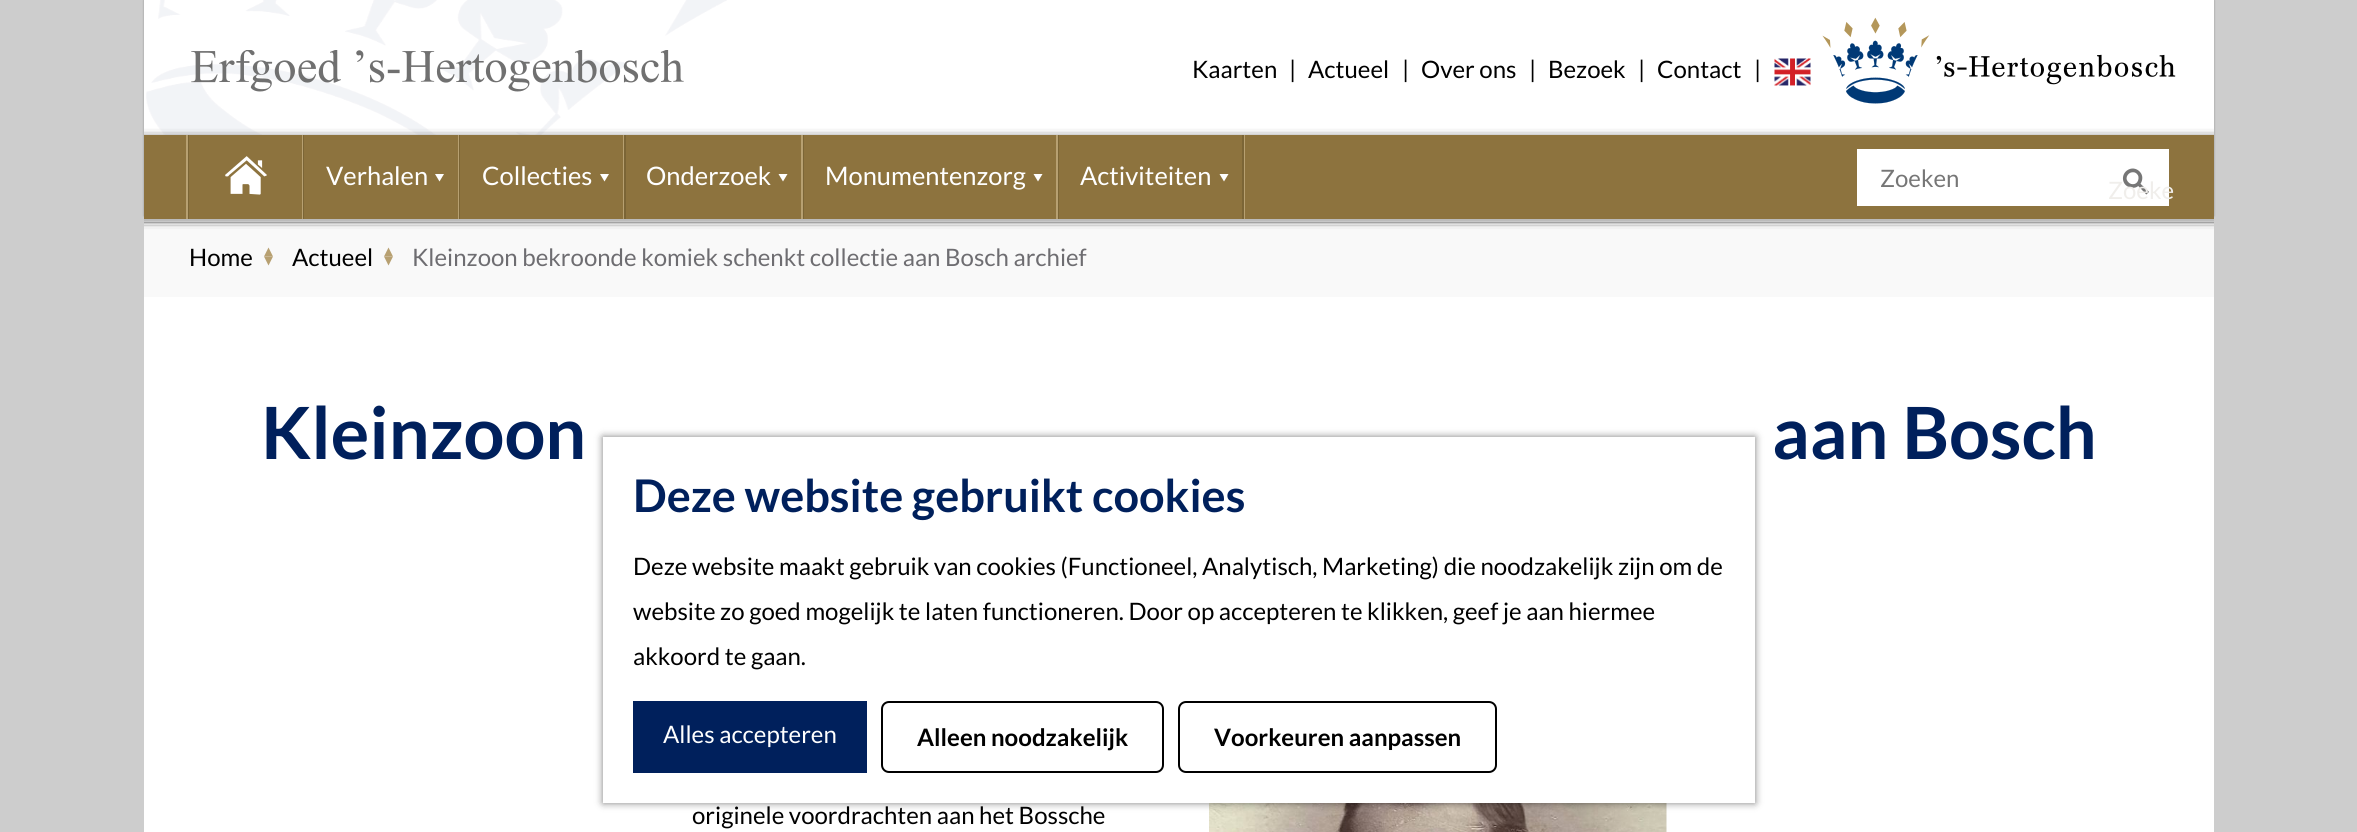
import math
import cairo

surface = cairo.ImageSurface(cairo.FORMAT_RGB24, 2357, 832)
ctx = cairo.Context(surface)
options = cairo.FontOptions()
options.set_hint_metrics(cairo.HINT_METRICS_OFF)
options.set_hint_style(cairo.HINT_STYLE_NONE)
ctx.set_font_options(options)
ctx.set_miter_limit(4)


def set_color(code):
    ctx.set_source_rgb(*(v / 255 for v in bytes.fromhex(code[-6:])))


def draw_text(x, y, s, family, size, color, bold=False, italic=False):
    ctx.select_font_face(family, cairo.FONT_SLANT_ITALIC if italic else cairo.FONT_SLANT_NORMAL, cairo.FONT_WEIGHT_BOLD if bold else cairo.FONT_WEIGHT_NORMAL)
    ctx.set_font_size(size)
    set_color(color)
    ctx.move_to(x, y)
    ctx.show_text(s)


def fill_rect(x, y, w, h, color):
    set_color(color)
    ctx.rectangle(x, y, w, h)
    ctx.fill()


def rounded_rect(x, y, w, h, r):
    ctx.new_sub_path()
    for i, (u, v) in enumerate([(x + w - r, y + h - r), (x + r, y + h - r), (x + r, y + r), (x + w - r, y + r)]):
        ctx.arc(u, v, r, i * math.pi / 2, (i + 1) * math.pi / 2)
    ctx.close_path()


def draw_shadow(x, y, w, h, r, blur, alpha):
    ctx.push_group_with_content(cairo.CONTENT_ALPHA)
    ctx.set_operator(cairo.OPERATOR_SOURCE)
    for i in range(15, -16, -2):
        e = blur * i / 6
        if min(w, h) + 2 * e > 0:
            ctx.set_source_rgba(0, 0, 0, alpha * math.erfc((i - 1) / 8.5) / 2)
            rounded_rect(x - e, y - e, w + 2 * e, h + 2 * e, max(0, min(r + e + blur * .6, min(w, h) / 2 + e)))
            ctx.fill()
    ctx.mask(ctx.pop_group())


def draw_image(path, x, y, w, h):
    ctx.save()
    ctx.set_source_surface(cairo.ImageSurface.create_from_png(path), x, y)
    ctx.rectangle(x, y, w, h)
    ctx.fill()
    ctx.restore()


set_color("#cdcdcd")
ctx.paint()
fill_rect(144, 0, 2070, 832, "#ffffff")
ctx.save()
ctx.set_fill_rule(cairo.FILL_RULE_EVEN_ODD)
ctx.new_path()
ctx.move_to(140, 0)
ctx.line_to(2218, 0)
ctx.line_to(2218, 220)
ctx.line_to(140, 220)
ctx.close_path()
ctx.move_to(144, 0)
ctx.line_to(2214, 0)
ctx.line_to(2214, 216)
ctx.line_to(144, 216)
ctx.close_path()
ctx.clip()
set_color("#000000")
draw_shadow(144, 0, 2070, 216, 0, 1, 0.3)
ctx.restore()
draw_image("assets/img1.png", 146, 0, 581, 135)
draw_image("assets/img2.png", 191, 50, 493, 42)
draw_text(1192, 78, "Kaarten", "Lato", 24, "#000000")
draw_text(1289, 78, "|", "Lato", 24, "#000000")
draw_text(1308, 78, "Actueel", "Lato", 24, "#000000")
draw_text(1402, 78, "|", "Lato", 24, "#000000")
draw_text(1421, 78, "Over ons", "Lato", 24, "#000000")
draw_text(1529, 78, "|", "Lato", 24, "#000000")
draw_text(1548, 78, "Bezoek", "Lato", 24, "#000000")
draw_text(1638, 78, "|", "Lato", 24, "#000000")
draw_text(1657, 78, "Contact", "Lato", 24, "#000000")
draw_text(1754, 78, "|", "Lato", 24, "#000000")
draw_image("assets/img3.png", 1774, 58, 37, 28)
draw_image("assets/img4.png", 1822, 17, 354, 87)
ctx.set_source_rgba(0.878, 0.878, 0.878, 0.1)
ctx.rectangle(144, 128, 2070, 7)
ctx.fill()
ctx.set_source_rgba(0.753, 0.753, 0.753, 0.1)
ctx.rectangle(144, 129, 2070, 6)
ctx.fill()
ctx.set_source_rgba(0.627, 0.627, 0.627, 0.1)
ctx.rectangle(144, 131, 2070, 4)
ctx.fill()
ctx.set_source_rgba(0.376, 0.376, 0.376, 0.1)
ctx.rectangle(144, 132, 2070, 3)
ctx.fill()
ctx.set_source_rgba(0.314, 0.314, 0.314, 0.1)
ctx.rectangle(144, 134, 2070, 1)
ctx.fill()
fill_rect(144, 135, 2070, 84, "#8d733e")
fill_rect(186, 135, 2, 84, "#b7a071")
fill_rect(188, 135, 1, 84, "#7b6536")
draw_image("assets/img5.png", 225, 156, 42, 39)
fill_rect(302, 135, 1, 84, "#b7a071")
fill_rect(303, 135, 1, 84, "#7b6536")
draw_text(326, 185, "Verhalen", "Lato", 25.5, "#ffffff")
ctx.new_path()
ctx.move_to(435, 174)
ctx.line_to(444, 174)
ctx.line_to(439.5, 181.5)
ctx.close_path()
ctx.fill()
fill_rect(458, 135, 1, 84, "#b7a071")
fill_rect(459, 135, 1, 84, "#7b6536")
draw_text(482, 185, "Collecties", "Lato", 25.5, "#ffffff")
ctx.new_path()
ctx.move_to(600, 174)
ctx.line_to(609, 174)
ctx.line_to(604.5, 181.5)
ctx.close_path()
ctx.fill()
fill_rect(623, 135, 1, 84, "#b7a071")
fill_rect(624, 135, 2, 84, "#7b6536")
draw_text(646, 185, "Onderzoek", "Lato", 25.5, "#ffffff")
ctx.new_path()
ctx.move_to(778.5, 174)
ctx.line_to(787.5, 174)
ctx.line_to(783, 181.5)
ctx.close_path()
ctx.fill()
fill_rect(801, 135, 2, 84, "#b7a071")
fill_rect(803, 135, 1, 84, "#7b6536")
draw_text(825, 185, "Monumentenzorg", "Lato", 25.5, "#ffffff")
ctx.new_path()
ctx.move_to(1033.5, 174)
ctx.line_to(1042.5, 174)
ctx.line_to(1038, 181.5)
ctx.close_path()
ctx.fill()
fill_rect(1244, 135, 1, 84, "#b7a071")
fill_rect(1242, 135, 2, 84, "#7b6536")
fill_rect(1056, 135, 2, 84, "#b7a071")
fill_rect(1058, 135, 1, 84, "#7b6536")
draw_text(1080, 185, "Activiteiten", "Lato", 25.5, "#ffffff")
ctx.new_path()
ctx.move_to(1219.5, 174)
ctx.line_to(1228.5, 174)
ctx.line_to(1224, 181.5)
ctx.close_path()
ctx.fill()
fill_rect(1857, 149, 312, 57, "#ffffff")
draw_text(1880, 187, "Zoeken", "Lato", 24, "#767676")
draw_image("assets/img6.png", 2122, 168, 27, 27)
draw_text(2108, 199, "Zoeke", "Lato", 24, "#f0eeeb")
fill_rect(144, 229, 2070, 1, "#f7f7f7")
fill_rect(144, 227, 2070, 2, "#f1f1f1")
fill_rect(144, 226, 2070, 1, "#e8e8e8")
fill_rect(144, 225, 2070, 1, "#d1d1d1")
fill_rect(144, 223, 2070, 1, "#cccccc")
fill_rect(144, 222, 2070, 1, "#a3a3a3")
fill_rect(144, 219, 2070, 2, "#bbbbbb")
fill_rect(144, 230, 2070, 67, "#f9f9f9")
fill_rect(144, 221, 2070, 1, "#c7c7c7")
fill_rect(144, 224, 2070, 1, "#e0e0e0")
draw_text(189, 266, "Home", "Lato", 24, "#000000")
set_color("#b7a071")
ctx.new_path()
ctx.move_to(264, 256.5)
ctx.line_to(273, 256.5)
ctx.line_to(268.5, 265.5)
ctx.close_path()
ctx.fill()
ctx.new_path()
ctx.move_to(273, 256.5)
ctx.line_to(264, 256.5)
ctx.line_to(268.5, 247.5)
ctx.close_path()
ctx.fill()
draw_text(292, 266, "Actueel", "Lato", 24, "#000000")
set_color("#b7a071")
ctx.new_path()
ctx.move_to(384, 256.5)
ctx.line_to(393, 256.5)
ctx.line_to(388.5, 265.5)
ctx.close_path()
ctx.fill()
ctx.new_path()
ctx.move_to(393, 256.5)
ctx.line_to(384, 256.5)
ctx.line_to(388.5, 247.5)
ctx.close_path()
ctx.fill()
draw_text(412, 266, "Kleinzoon bekroonde komiek schenkt collectie aan Bosch archief", "Lato", 24, "#6e6d71")
draw_text(261, 459, "Kleinzoon", "Lato", 72, "#00205c", bold=True)
draw_text(1772, 459, "aan Bosch", "Lato", 72, "#00205c", bold=True)
draw_text(692, 824, "originele voordrachten aan het Bossche", "Lato", 24, "#000000")
draw_image("assets/img7.png", 1209, 803, 458, 29)
set_color("#000000")
draw_shadow(603, 437, 1152, 366, 0, 4, 0.5)
fill_rect(603, 437, 1152, 366, "#ffffff")
draw_text(633, 512, "Deze website gebruikt cookies", "Lato", 45, "#00205c", bold=True)
draw_text(633, 575, "Deze website maakt gebruik van cookies (Functioneel, Analytisch, Marketing) die noodzakelijk zijn om de", "Lato", 24, "#000000")
draw_text(633, 620, "website zo goed mogelijk te laten functioneren. Door op accepteren te klikken, geef je aan hiermee", "Lato", 24, "#000000")
draw_text(633, 665, "akkoord te gaan.", "Lato", 24, "#000000")
fill_rect(633, 701, 234, 72, "#00205c")
draw_text(663, 743, "Alles accepteren", "Lato", 24, "#ffffff")
rounded_rect(882, 702, 281, 70, 7)
set_color("#000000")
ctx.stroke()
draw_text(917, 746, "Alleen noodzakelijk", "Lato", 24, "#000000", bold=True)
rounded_rect(1179, 702, 317, 70, 7)
ctx.stroke()
draw_text(1214, 746, "Voorkeuren aanpassen", "Lato", 24, "#000000", bold=True)
surface.write_to_png("output.png")
